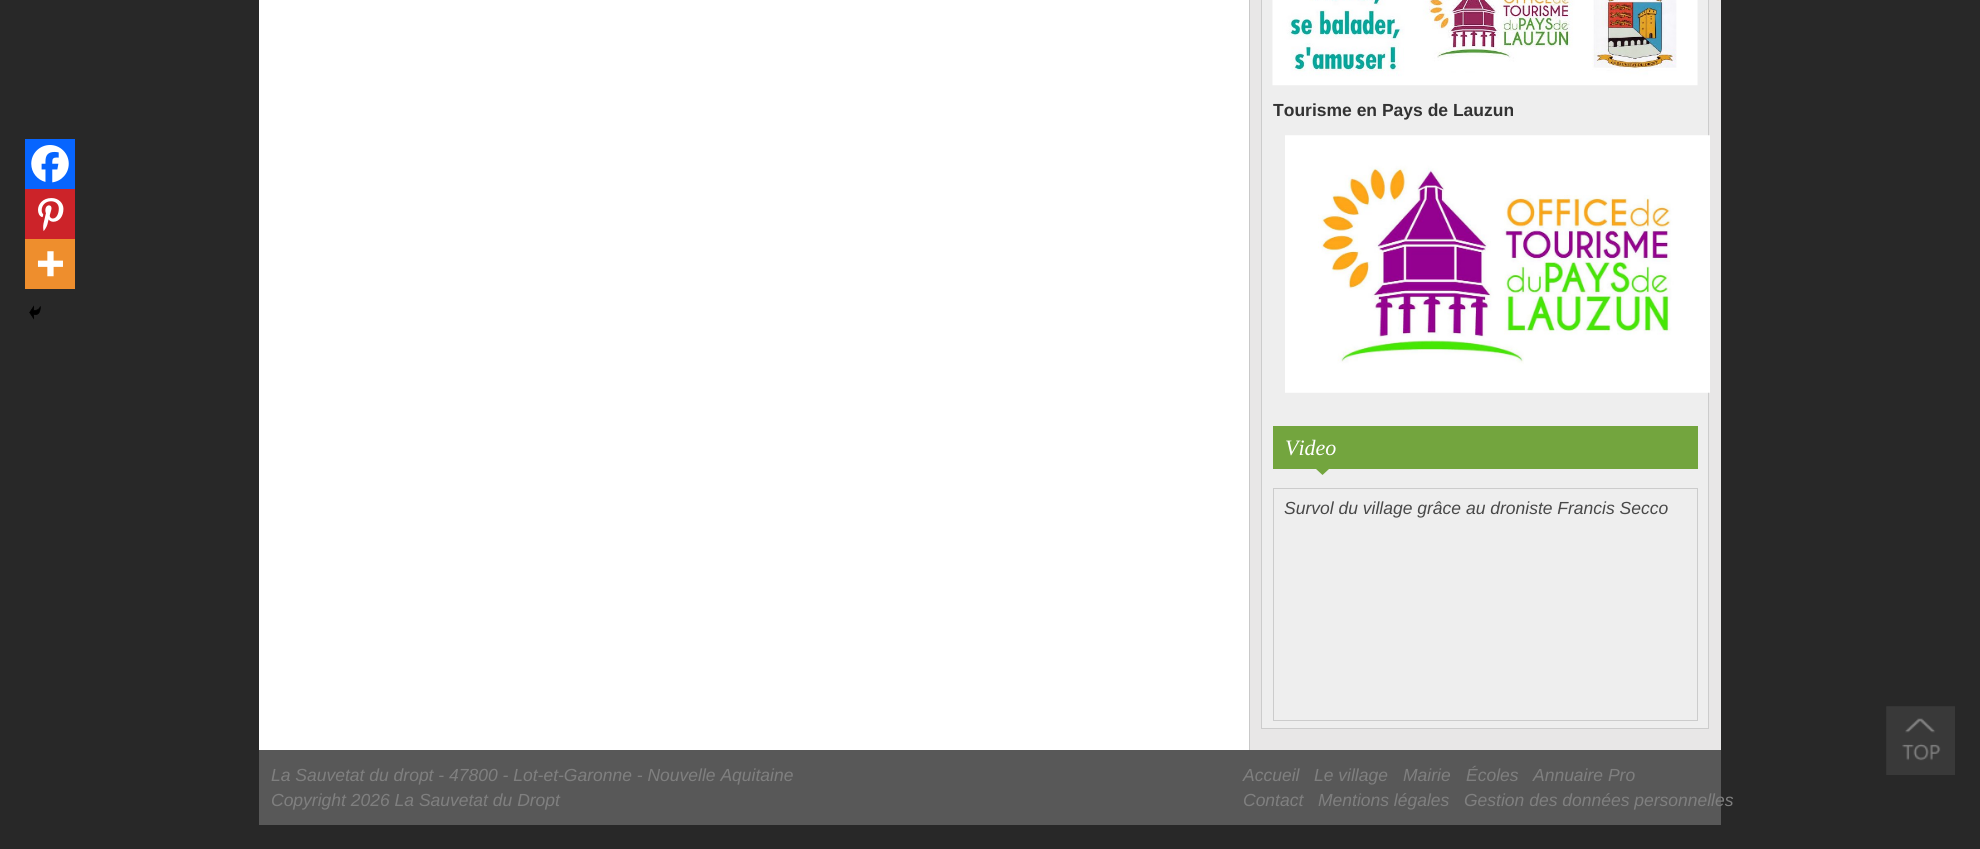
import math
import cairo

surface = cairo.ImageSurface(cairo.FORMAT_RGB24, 1980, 849)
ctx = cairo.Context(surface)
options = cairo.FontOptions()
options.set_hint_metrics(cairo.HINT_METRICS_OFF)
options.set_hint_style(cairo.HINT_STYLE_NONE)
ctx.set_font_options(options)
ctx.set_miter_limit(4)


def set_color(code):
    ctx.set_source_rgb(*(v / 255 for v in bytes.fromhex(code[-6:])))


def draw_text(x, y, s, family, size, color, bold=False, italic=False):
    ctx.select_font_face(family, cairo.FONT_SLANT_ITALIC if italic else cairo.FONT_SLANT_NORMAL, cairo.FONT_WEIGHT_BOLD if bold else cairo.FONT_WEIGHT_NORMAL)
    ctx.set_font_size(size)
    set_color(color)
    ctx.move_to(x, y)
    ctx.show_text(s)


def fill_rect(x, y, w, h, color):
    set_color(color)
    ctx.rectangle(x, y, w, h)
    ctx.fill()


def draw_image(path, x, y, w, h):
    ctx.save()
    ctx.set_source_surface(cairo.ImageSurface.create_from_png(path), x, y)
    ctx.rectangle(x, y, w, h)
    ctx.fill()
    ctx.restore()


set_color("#282828")
ctx.paint()
fill_rect(1250, 0, 471, 750, "#e8e7e7")
fill_rect(259, 0, 990, 750, "#ffffff")
fill_rect(1249, 0, 1, 750, "#c9c9c9")
fill_rect(25, 139, 50, 50, "#0765fe")
draw_image("assets/img1.png", 31, 145, 38, 38)
fill_rect(25, 189, 50, 50, "#cc2329")
draw_image("assets/img2.png", 38, 198, 26, 33)
fill_rect(25, 239, 50, 50, "#ee8e2d")
draw_image("assets/img3.png", 37, 251, 26, 26)
draw_image("assets/img4.png", 29, 305, 12, 15)
set_color("#eeeeee")
ctx.rectangle(1261.5, -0.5, 447, 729)
ctx.fill_preserve()
set_color("#cccccc")
ctx.set_line_width(1)
ctx.stroke()
draw_image("assets/img5.png", 1272, 0, 426, 86)
draw_text(1273, 116, "Tourisme en Pays de Lauzun", "Liberation Sans", 17.5, "#333333", bold=True)
draw_image("assets/img6.png", 1285, 135, 425, 258)
fill_rect(1273, 426, 425, 43, "#73a53e")
draw_text(1285, 455, "Video", "Liberation Serif", 22, "#ffffff", italic=True)
set_color("#73a53e")
ctx.new_path()
ctx.move_to(1316, 469)
ctx.line_to(1329, 469)
ctx.line_to(1322.5, 475)
ctx.close_path()
ctx.fill()
ctx.rectangle(1273.5, 488.5, 424, 232)
set_color("#cccccc")
ctx.stroke()
draw_text(1284, 514, "Survol du village grâce au droniste Francis Secco", "Liberation Sans", 17.5, "#484848", italic=True)
fill_rect(259, 750, 1462, 75, "#585858")
draw_text(271, 781, "La Sauvetat du dropt - 47800 - Lot-et-Garonne - Nouvelle Aquitaine", "Liberation Sans", 17.5, "#7f7f7f", italic=True)
draw_text(271, 806, "Copyright 2026 La Sauvetat du Dropt", "Liberation Sans", 17.5, "#7f7f7f", italic=True)
draw_text(1243, 781, "Accueil", "Liberation Sans", 17.5, "#7f7f7f", italic=True)
draw_text(1314, 781, "Le village", "Liberation Sans", 17.5, "#7f7f7f", italic=True)
draw_text(1403, 781, "Mairie", "Liberation Sans", 17.5, "#7f7f7f", italic=True)
draw_text(1466, 781, "Écoles", "Liberation Sans", 17.5, "#7f7f7f", italic=True)
draw_text(1533, 781, "Annuaire Pro", "Liberation Sans", 17.5, "#7f7f7f", italic=True)
draw_text(1243, 806, "Contact", "Liberation Sans", 17.5, "#7f7f7f", italic=True)
draw_text(1318, 806, "Mentions légales", "Liberation Sans", 17.5, "#7f7f7f", italic=True)
draw_text(1464, 806, "Gestion des données personnelles", "Liberation Sans", 17.5, "#7f7f7f", italic=True)
draw_image("assets/img7.png", 1886, 706, 69, 69)
surface.write_to_png("output.png")
